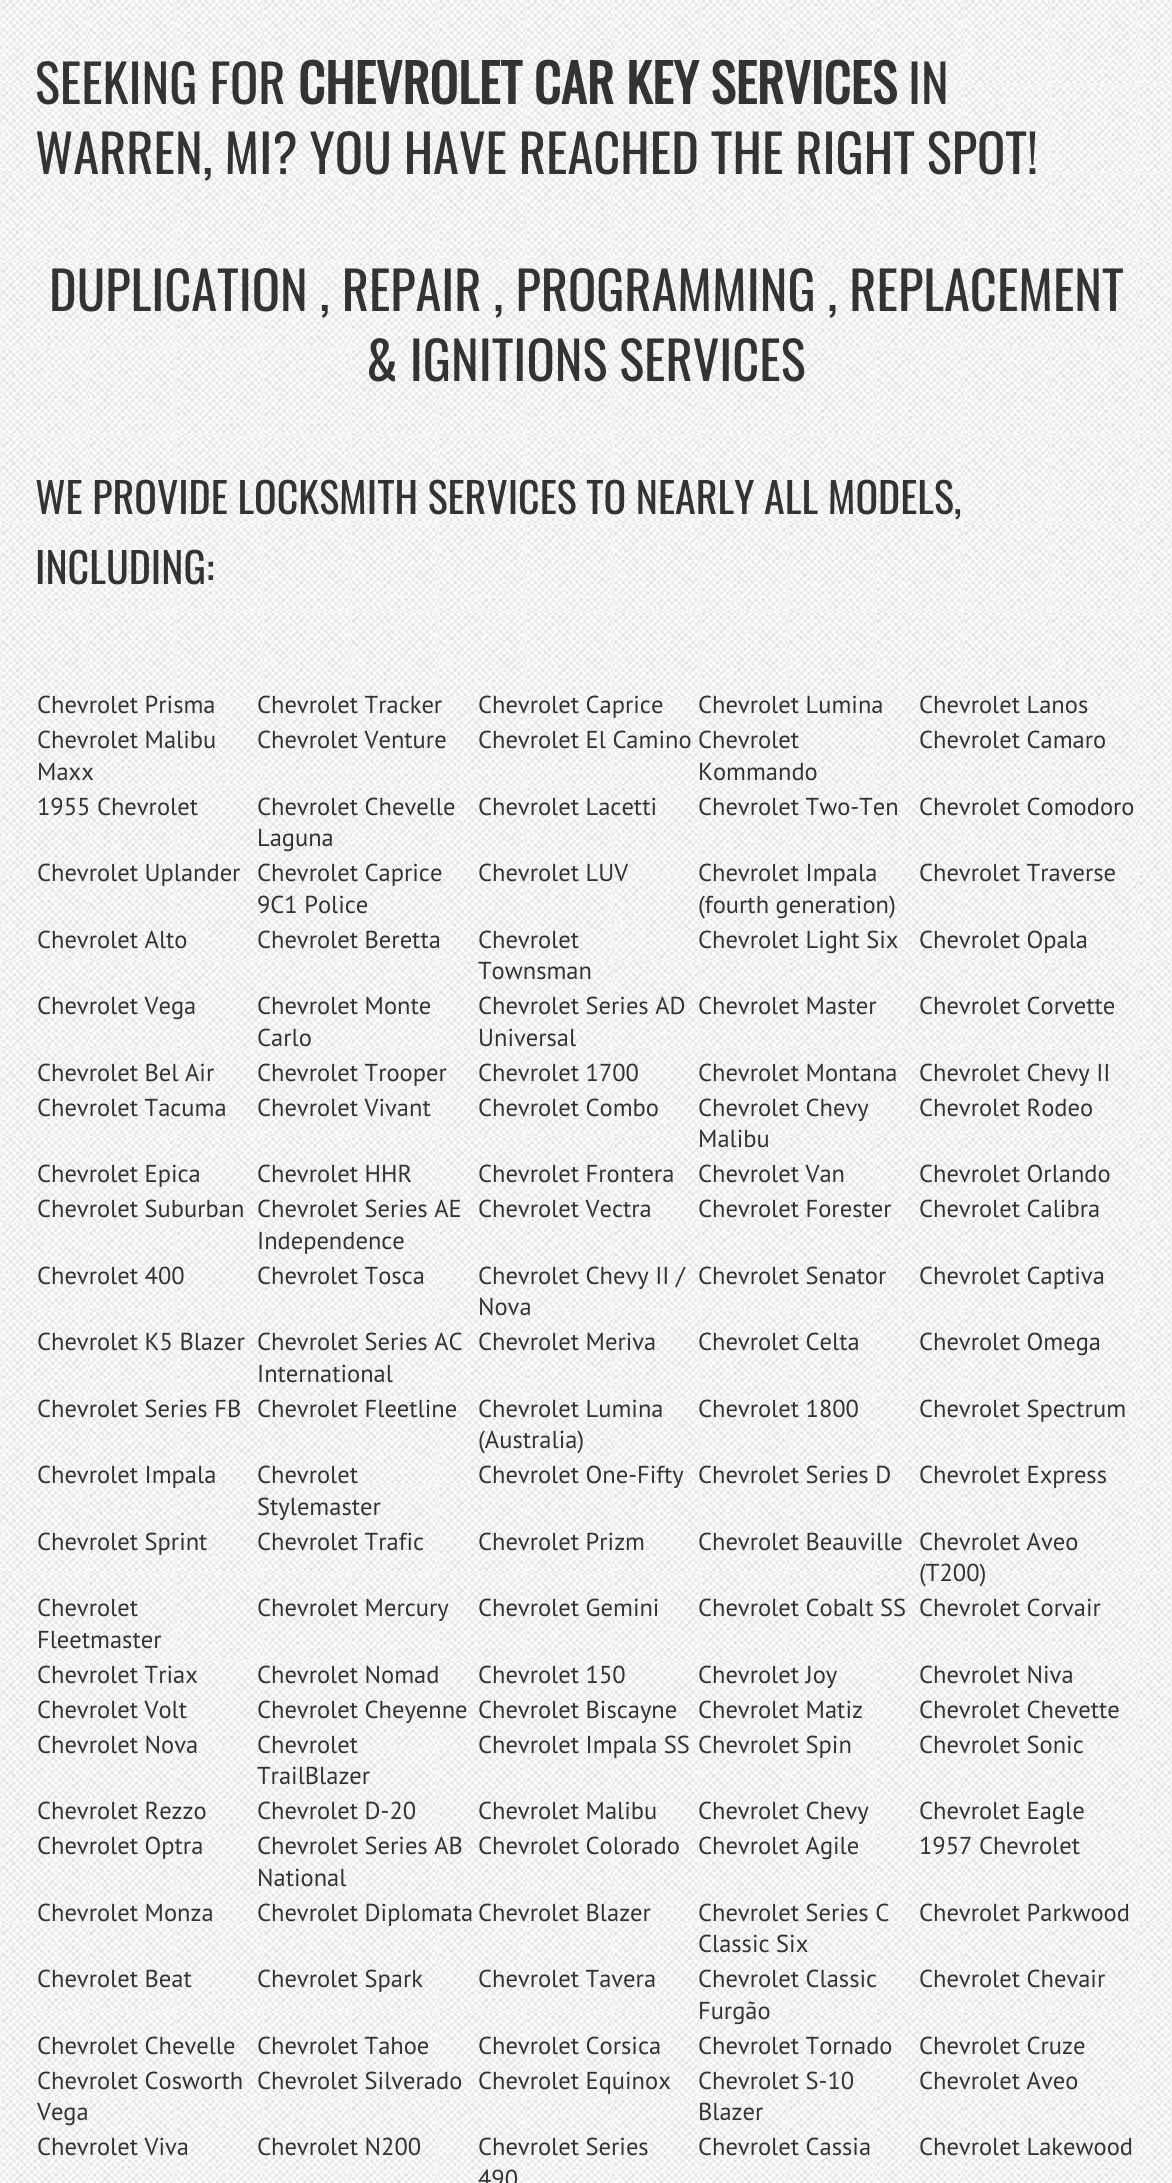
import math
import cairo

surface = cairo.ImageSurface(cairo.FORMAT_RGB24, 1172, 2183)
ctx = cairo.Context(surface)
options = cairo.FontOptions()
options.set_hint_metrics(cairo.HINT_METRICS_OFF)
options.set_hint_style(cairo.HINT_STYLE_NONE)
ctx.set_font_options(options)
ctx.set_miter_limit(4)


def set_color(code):
    ctx.set_source_rgb(*(v / 255 for v in bytes.fromhex(code[-6:])))


def draw_text(x, y, s, family, size, color, bold=False, italic=False):
    ctx.select_font_face(family, cairo.FONT_SLANT_ITALIC if italic else cairo.FONT_SLANT_NORMAL, cairo.FONT_WEIGHT_BOLD if bold else cairo.FONT_WEIGHT_NORMAL)
    ctx.set_font_size(size)
    set_color(color)
    ctx.move_to(x, y)
    ctx.show_text(s)


def draw_image(path, x, y, w, h):
    ctx.save()
    ctx.set_source_surface(cairo.ImageSurface.create_from_png(path), x, y)
    ctx.rectangle(x, y, w, h)
    ctx.fill()
    ctx.restore()


set_color("#ffffff")
ctx.paint()
draw_image("assets/img1.png", 0, 0, 1172, 2183)
draw_text(35, 104, "SEEKING FOR", "Oswald", 52.5, "#333333")
draw_text(298, 104, "CHEVROLET CAR KEY SERVICES", "Oswald", 52.5, "#333333", bold=True)
draw_text(908, 104, "IN", "Oswald", 52.5, "#333333")
draw_text(35, 174, "WARREN, MI? YOU HAVE REACHED THE RIGHT SPOT!", "Oswald", 52.5, "#333333")
draw_text(49, 311, "DUPLICATION , REPAIR , PROGRAMMING , REPLACEMENT", "Oswald", 52.5, "#333333")
draw_text(366, 381, "& IGNITIONS SERVICES", "Oswald", 52.5, "#333333")
draw_text(35, 514, "WE PROVIDE LOCKSMITH SERVICES TO NEARLY ALL MODELS,", "Oswald", 42, "#333333")
draw_text(35, 584, "INCLUDING:", "Oswald", 42, "#333333")
draw_text(37, 713, "Chevrolet Prisma", "PT Sans", 24.5, "#333333")
draw_text(257, 713, "Chevrolet Tracker", "PT Sans", 24.5, "#333333")
draw_text(478, 713, "Chevrolet Caprice", "PT Sans", 24.5, "#333333")
draw_text(698, 713, "Chevrolet Lumina", "PT Sans", 24.5, "#333333")
draw_text(919, 713, "Chevrolet Lanos", "PT Sans", 24.5, "#333333")
draw_text(37, 748, "Chevrolet Malibu", "PT Sans", 24.5, "#333333")
draw_text(37, 780, "Maxx", "PT Sans", 24.5, "#333333")
draw_text(257, 748, "Chevrolet Venture", "PT Sans", 24.5, "#333333")
draw_text(478, 748, "Chevrolet El Camino", "PT Sans", 24.5, "#333333")
draw_text(698, 748, "Chevrolet", "PT Sans", 24.5, "#333333")
draw_text(698, 780, "Kommando", "PT Sans", 24.5, "#333333")
draw_text(919, 748, "Chevrolet Camaro", "PT Sans", 24.5, "#333333")
draw_text(37, 815, "1955 Chevrolet", "PT Sans", 24.5, "#333333")
draw_text(257, 815, "Chevrolet Chevelle", "PT Sans", 24.5, "#333333")
draw_text(257, 846, "Laguna", "PT Sans", 24.5, "#333333")
draw_text(478, 815, "Chevrolet Lacetti", "PT Sans", 24.5, "#333333")
draw_text(698, 815, "Chevrolet Two-Ten", "PT Sans", 24.5, "#333333")
draw_text(919, 815, "Chevrolet Comodoro", "PT Sans", 24.5, "#333333")
draw_text(37, 881, "Chevrolet Uplander", "PT Sans", 24.5, "#333333")
draw_text(257, 881, "Chevrolet Caprice", "PT Sans", 24.5, "#333333")
draw_text(257, 913, "9C1 Police", "PT Sans", 24.5, "#333333")
draw_text(478, 881, "Chevrolet LUV", "PT Sans", 24.5, "#333333")
draw_text(698, 881, "Chevrolet Impala", "PT Sans", 24.5, "#333333")
draw_text(698, 913, "(fourth generation)", "PT Sans", 24.5, "#333333")
draw_text(919, 881, "Chevrolet Traverse", "PT Sans", 24.5, "#333333")
draw_text(37, 948, "Chevrolet Alto", "PT Sans", 24.5, "#333333")
draw_text(257, 948, "Chevrolet Beretta", "PT Sans", 24.5, "#333333")
draw_text(478, 948, "Chevrolet", "PT Sans", 24.5, "#333333")
draw_text(478, 979, "Townsman", "PT Sans", 24.5, "#333333")
draw_text(698, 948, "Chevrolet Light Six", "PT Sans", 24.5, "#333333")
draw_text(919, 948, "Chevrolet Opala", "PT Sans", 24.5, "#333333")
draw_text(37, 1014, "Chevrolet Vega", "PT Sans", 24.5, "#333333")
draw_text(257, 1014, "Chevrolet Monte", "PT Sans", 24.5, "#333333")
draw_text(257, 1046, "Carlo", "PT Sans", 24.5, "#333333")
draw_text(478, 1014, "Chevrolet Series AD", "PT Sans", 24.5, "#333333")
draw_text(478, 1046, "Universal", "PT Sans", 24.5, "#333333")
draw_text(698, 1014, "Chevrolet Master", "PT Sans", 24.5, "#333333")
draw_text(919, 1014, "Chevrolet Corvette", "PT Sans", 24.5, "#333333")
draw_text(37, 1081, "Chevrolet Bel Air", "PT Sans", 24.5, "#333333")
draw_text(257, 1081, "Chevrolet Trooper", "PT Sans", 24.5, "#333333")
draw_text(478, 1081, "Chevrolet 1700", "PT Sans", 24.5, "#333333")
draw_text(698, 1081, "Chevrolet Montana", "PT Sans", 24.5, "#333333")
draw_text(919, 1081, "Chevrolet Chevy II", "PT Sans", 24.5, "#333333")
draw_text(37, 1116, "Chevrolet Tacuma", "PT Sans", 24.5, "#333333")
draw_text(257, 1116, "Chevrolet Vivant", "PT Sans", 24.5, "#333333")
draw_text(478, 1116, "Chevrolet Combo", "PT Sans", 24.5, "#333333")
draw_text(698, 1116, "Chevrolet Chevy", "PT Sans", 24.5, "#333333")
draw_text(698, 1147, "Malibu", "PT Sans", 24.5, "#333333")
draw_text(919, 1116, "Chevrolet Rodeo", "PT Sans", 24.5, "#333333")
draw_text(37, 1182, "Chevrolet Epica", "PT Sans", 24.5, "#333333")
draw_text(257, 1182, "Chevrolet HHR", "PT Sans", 24.5, "#333333")
draw_text(478, 1182, "Chevrolet Frontera", "PT Sans", 24.5, "#333333")
draw_text(698, 1182, "Chevrolet Van", "PT Sans", 24.5, "#333333")
draw_text(919, 1182, "Chevrolet Orlando", "PT Sans", 24.5, "#333333")
draw_text(37, 1217, "Chevrolet Suburban", "PT Sans", 24.5, "#333333")
draw_text(257, 1217, "Chevrolet Series AE", "PT Sans", 24.5, "#333333")
draw_text(257, 1249, "Independence", "PT Sans", 24.5, "#333333")
draw_text(478, 1217, "Chevrolet Vectra", "PT Sans", 24.5, "#333333")
draw_text(698, 1217, "Chevrolet Forester", "PT Sans", 24.5, "#333333")
draw_text(919, 1217, "Chevrolet Calibra", "PT Sans", 24.5, "#333333")
draw_text(37, 1284, "Chevrolet 400", "PT Sans", 24.5, "#333333")
draw_text(257, 1284, "Chevrolet Tosca", "PT Sans", 24.5, "#333333")
draw_text(478, 1284, "Chevrolet Chevy II /", "PT Sans", 24.5, "#333333")
draw_text(478, 1315, "Nova", "PT Sans", 24.5, "#333333")
draw_text(698, 1284, "Chevrolet Senator", "PT Sans", 24.5, "#333333")
draw_text(919, 1284, "Chevrolet Captiva", "PT Sans", 24.5, "#333333")
draw_text(37, 1350, "Chevrolet K5 Blazer", "PT Sans", 24.5, "#333333")
draw_text(257, 1350, "Chevrolet Series AC", "PT Sans", 24.5, "#333333")
draw_text(257, 1382, "International", "PT Sans", 24.5, "#333333")
draw_text(478, 1350, "Chevrolet Meriva", "PT Sans", 24.5, "#333333")
draw_text(698, 1350, "Chevrolet Celta", "PT Sans", 24.5, "#333333")
draw_text(919, 1350, "Chevrolet Omega", "PT Sans", 24.5, "#333333")
draw_text(37, 1417, "Chevrolet Series FB", "PT Sans", 24.5, "#333333")
draw_text(257, 1417, "Chevrolet Fleetline", "PT Sans", 24.5, "#333333")
draw_text(478, 1417, "Chevrolet Lumina", "PT Sans", 24.5, "#333333")
draw_text(478, 1448, "(Australia)", "PT Sans", 24.5, "#333333")
draw_text(698, 1417, "Chevrolet 1800", "PT Sans", 24.5, "#333333")
draw_text(919, 1417, "Chevrolet Spectrum", "PT Sans", 24.5, "#333333")
draw_text(37, 1483, "Chevrolet Impala", "PT Sans", 24.5, "#333333")
draw_text(257, 1483, "Chevrolet", "PT Sans", 24.5, "#333333")
draw_text(257, 1515, "Stylemaster", "PT Sans", 24.5, "#333333")
draw_text(478, 1483, "Chevrolet One-Fifty", "PT Sans", 24.5, "#333333")
draw_text(698, 1483, "Chevrolet Series D", "PT Sans", 24.5, "#333333")
draw_text(919, 1483, "Chevrolet Express", "PT Sans", 24.5, "#333333")
draw_text(37, 1550, "Chevrolet Sprint", "PT Sans", 24.5, "#333333")
draw_text(257, 1550, "Chevrolet Trafic", "PT Sans", 24.5, "#333333")
draw_text(478, 1550, "Chevrolet Prizm", "PT Sans", 24.5, "#333333")
draw_text(698, 1550, "Chevrolet Beauville", "PT Sans", 24.5, "#333333")
draw_text(919, 1550, "Chevrolet Aveo", "PT Sans", 24.5, "#333333")
draw_text(919, 1581, "(T200)", "PT Sans", 24.5, "#333333")
draw_text(37, 1616, "Chevrolet", "PT Sans", 24.5, "#333333")
draw_text(37, 1648, "Fleetmaster", "PT Sans", 24.5, "#333333")
draw_text(257, 1616, "Chevrolet Mercury", "PT Sans", 24.5, "#333333")
draw_text(478, 1616, "Chevrolet Gemini", "PT Sans", 24.5, "#333333")
draw_text(698, 1616, "Chevrolet Cobalt SS", "PT Sans", 24.5, "#333333")
draw_text(919, 1616, "Chevrolet Corvair", "PT Sans", 24.5, "#333333")
draw_text(37, 1683, "Chevrolet Triax", "PT Sans", 24.5, "#333333")
draw_text(257, 1683, "Chevrolet Nomad", "PT Sans", 24.5, "#333333")
draw_text(478, 1683, "Chevrolet 150", "PT Sans", 24.5, "#333333")
draw_text(698, 1683, "Chevrolet Joy", "PT Sans", 24.5, "#333333")
draw_text(919, 1683, "Chevrolet Niva", "PT Sans", 24.5, "#333333")
draw_text(37, 1718, "Chevrolet Volt", "PT Sans", 24.5, "#333333")
draw_text(257, 1718, "Chevrolet Cheyenne", "PT Sans", 24.5, "#333333")
draw_text(478, 1718, "Chevrolet Biscayne", "PT Sans", 24.5, "#333333")
draw_text(698, 1718, "Chevrolet Matiz", "PT Sans", 24.5, "#333333")
draw_text(919, 1718, "Chevrolet Chevette", "PT Sans", 24.5, "#333333")
draw_text(37, 1753, "Chevrolet Nova", "PT Sans", 24.5, "#333333")
draw_text(257, 1753, "Chevrolet", "PT Sans", 24.5, "#333333")
draw_text(257, 1784, "TrailBlazer", "PT Sans", 24.5, "#333333")
draw_text(478, 1753, "Chevrolet Impala SS", "PT Sans", 24.5, "#333333")
draw_text(698, 1753, "Chevrolet Spin", "PT Sans", 24.5, "#333333")
draw_text(919, 1753, "Chevrolet Sonic", "PT Sans", 24.5, "#333333")
draw_text(37, 1819, "Chevrolet Rezzo", "PT Sans", 24.5, "#333333")
draw_text(257, 1819, "Chevrolet D-20", "PT Sans", 24.5, "#333333")
draw_text(478, 1819, "Chevrolet Malibu", "PT Sans", 24.5, "#333333")
draw_text(698, 1819, "Chevrolet Chevy", "PT Sans", 24.5, "#333333")
draw_text(919, 1819, "Chevrolet Eagle", "PT Sans", 24.5, "#333333")
draw_text(37, 1854, "Chevrolet Optra", "PT Sans", 24.5, "#333333")
draw_text(257, 1854, "Chevrolet Series AB", "PT Sans", 24.5, "#333333")
draw_text(257, 1886, "National", "PT Sans", 24.5, "#333333")
draw_text(478, 1854, "Chevrolet Colorado", "PT Sans", 24.5, "#333333")
draw_text(698, 1854, "Chevrolet Agile", "PT Sans", 24.5, "#333333")
draw_text(919, 1854, "1957 Chevrolet", "PT Sans", 24.5, "#333333")
draw_text(37, 1921, "Chevrolet Monza", "PT Sans", 24.5, "#333333")
draw_text(257, 1921, "Chevrolet Diplomata", "PT Sans", 24.5, "#333333")
draw_text(478, 1921, "Chevrolet Blazer", "PT Sans", 24.5, "#333333")
draw_text(698, 1921, "Chevrolet Series C", "PT Sans", 24.5, "#333333")
draw_text(698, 1952, "Classic Six", "PT Sans", 24.5, "#333333")
draw_text(919, 1921, "Chevrolet Parkwood", "PT Sans", 24.5, "#333333")
draw_text(37, 1987, "Chevrolet Beat", "PT Sans", 24.5, "#333333")
draw_text(257, 1987, "Chevrolet Spark", "PT Sans", 24.5, "#333333")
draw_text(478, 1987, "Chevrolet Tavera", "PT Sans", 24.5, "#333333")
draw_text(698, 1987, "Chevrolet Classic", "PT Sans", 24.5, "#333333")
draw_text(698, 2019, "Furgão", "PT Sans", 24.5, "#333333")
draw_text(919, 1987, "Chevrolet Chevair", "PT Sans", 24.5, "#333333")
draw_text(37, 2054, "Chevrolet Chevelle", "PT Sans", 24.5, "#333333")
draw_text(257, 2054, "Chevrolet Tahoe", "PT Sans", 24.5, "#333333")
draw_text(478, 2054, "Chevrolet Corsica", "PT Sans", 24.5, "#333333")
draw_text(698, 2054, "Chevrolet Tornado", "PT Sans", 24.5, "#333333")
draw_text(919, 2054, "Chevrolet Cruze", "PT Sans", 24.5, "#333333")
draw_text(37, 2089, "Chevrolet Cosworth", "PT Sans", 24.5, "#333333")
draw_text(37, 2120, "Vega", "PT Sans", 24.5, "#333333")
draw_text(257, 2089, "Chevrolet Silverado", "PT Sans", 24.5, "#333333")
draw_text(478, 2089, "Chevrolet Equinox", "PT Sans", 24.5, "#333333")
draw_text(698, 2089, "Chevrolet S-10", "PT Sans", 24.5, "#333333")
draw_text(698, 2120, "Blazer", "PT Sans", 24.5, "#333333")
draw_text(919, 2089, "Chevrolet Aveo", "PT Sans", 24.5, "#333333")
draw_text(37, 2155, "Chevrolet Viva", "PT Sans", 24.5, "#333333")
draw_text(257, 2155, "Chevrolet N200", "PT Sans", 24.5, "#333333")
draw_text(478, 2155, "Chevrolet Series", "PT Sans", 24.5, "#333333")
draw_text(478, 2187, "490", "PT Sans", 24.5, "#333333")
draw_text(698, 2155, "Chevrolet Cassia", "PT Sans", 24.5, "#333333")
draw_text(919, 2155, "Chevrolet Lakewood", "PT Sans", 24.5, "#333333")
surface.write_to_png("output.png")
